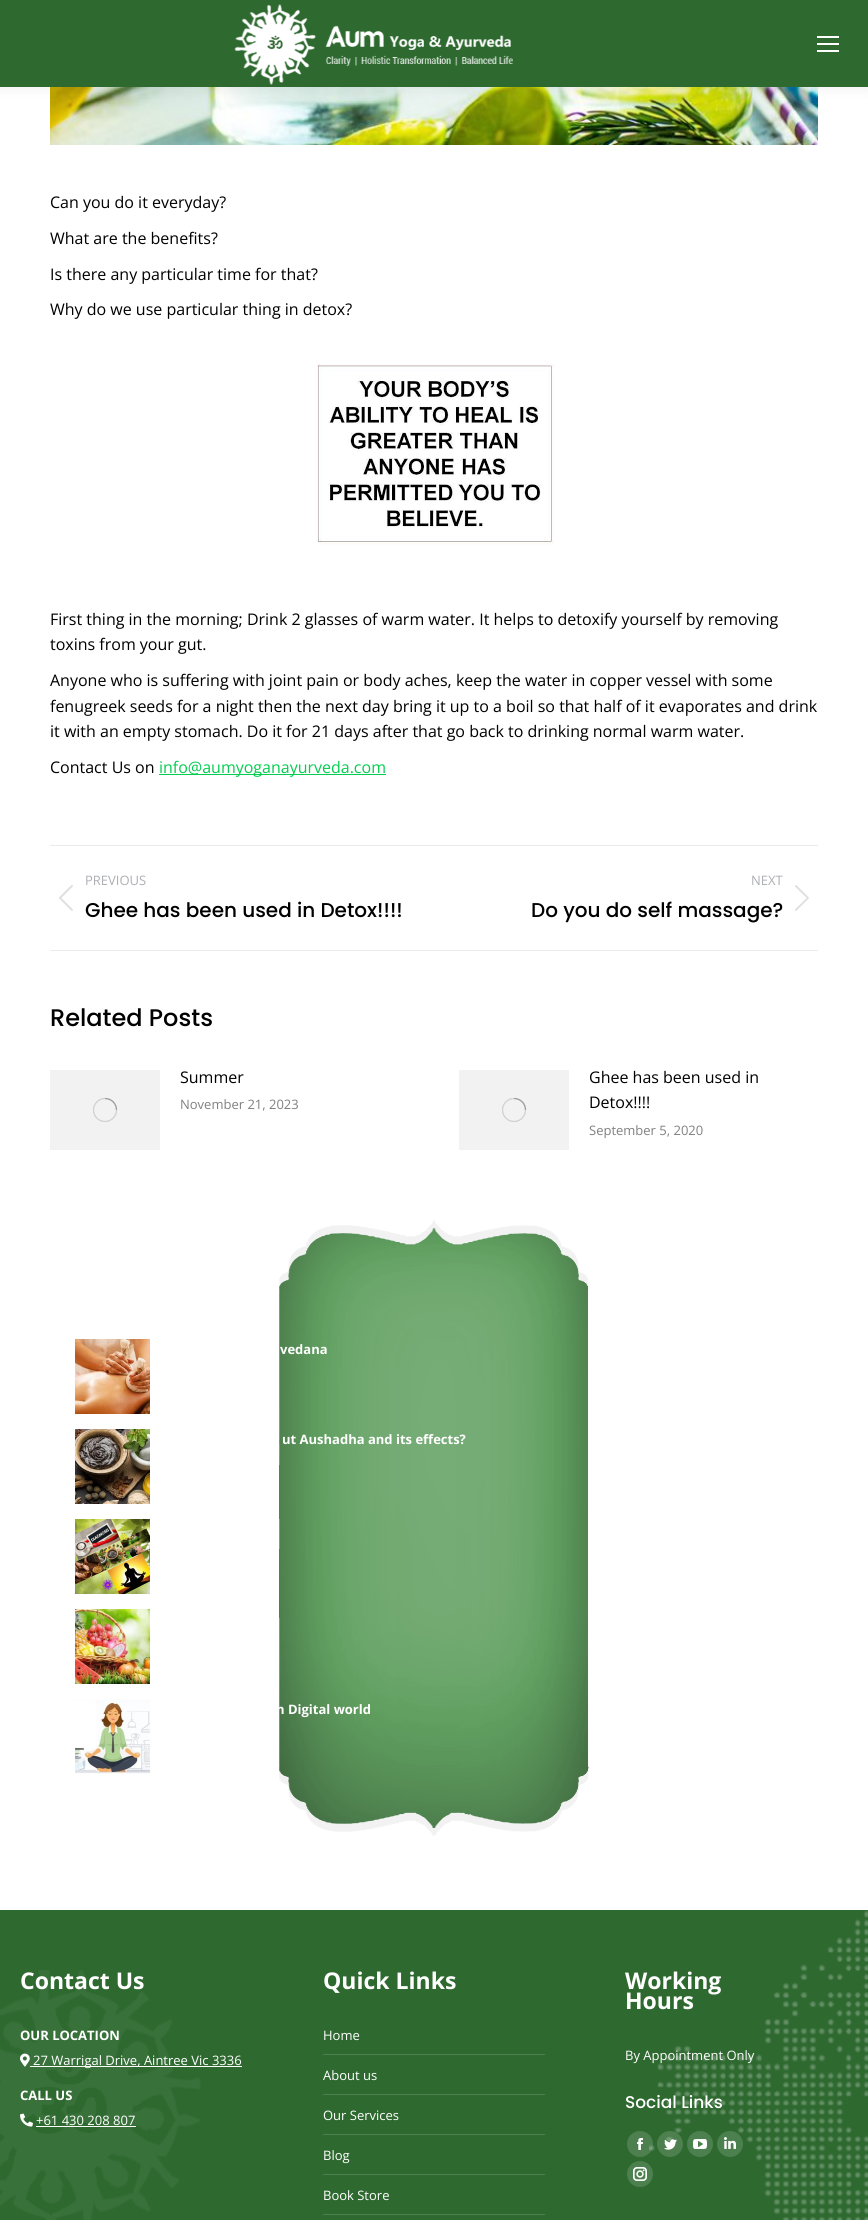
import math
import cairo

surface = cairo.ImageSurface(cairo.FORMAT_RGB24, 868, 2220)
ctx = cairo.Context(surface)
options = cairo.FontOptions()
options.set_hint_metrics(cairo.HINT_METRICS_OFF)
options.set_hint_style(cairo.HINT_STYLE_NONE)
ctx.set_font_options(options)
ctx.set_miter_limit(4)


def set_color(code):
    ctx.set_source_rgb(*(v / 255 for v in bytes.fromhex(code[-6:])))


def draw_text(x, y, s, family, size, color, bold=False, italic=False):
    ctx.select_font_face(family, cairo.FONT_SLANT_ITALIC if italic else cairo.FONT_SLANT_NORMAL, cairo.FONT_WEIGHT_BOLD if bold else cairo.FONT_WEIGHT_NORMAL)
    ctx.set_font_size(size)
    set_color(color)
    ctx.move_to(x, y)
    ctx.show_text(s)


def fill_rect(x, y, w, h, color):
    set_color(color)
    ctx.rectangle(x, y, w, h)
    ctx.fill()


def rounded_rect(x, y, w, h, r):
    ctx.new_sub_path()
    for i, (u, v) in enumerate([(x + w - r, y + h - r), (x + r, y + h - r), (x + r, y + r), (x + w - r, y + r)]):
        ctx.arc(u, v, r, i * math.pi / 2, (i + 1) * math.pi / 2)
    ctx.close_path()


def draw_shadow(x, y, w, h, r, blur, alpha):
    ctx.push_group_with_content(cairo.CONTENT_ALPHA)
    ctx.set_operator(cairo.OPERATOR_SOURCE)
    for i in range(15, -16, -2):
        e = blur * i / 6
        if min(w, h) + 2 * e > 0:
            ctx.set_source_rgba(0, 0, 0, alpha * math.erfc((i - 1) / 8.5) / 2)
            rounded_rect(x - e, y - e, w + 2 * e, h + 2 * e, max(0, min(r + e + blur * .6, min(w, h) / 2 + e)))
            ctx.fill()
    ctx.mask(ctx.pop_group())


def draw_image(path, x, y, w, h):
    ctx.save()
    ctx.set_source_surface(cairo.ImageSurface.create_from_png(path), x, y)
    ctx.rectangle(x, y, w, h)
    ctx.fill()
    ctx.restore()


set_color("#ffffff")
ctx.paint()
draw_image("assets/img2.png", 50, 87, 768, 58)
set_color("#000000")
draw_shadow(-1, -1, 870, 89, 0, 7.5, 0.07)
fill_rect(0, 0, 868, 87, "#2e6930")
draw_image("assets/img1.png", 234, 4, 279, 81)
fill_rect(817, 36, 22, 2, "#ffffff")
fill_rect(817, 43, 22, 2, "#ffffff")
fill_rect(817, 50, 22, 2, "#ffffff")
draw_text(50, 208, "Can you do it everyday?", "Open Sans", 16, "#000000")
draw_text(50, 244, "What are the benefits?", "Open Sans", 16, "#000000")
draw_text(50, 280, "Is there any particular time for that?", "Open Sans", 16, "#000000")
draw_text(50, 315, "Why do we use particular thing in detox?", "Open Sans", 16, "#000000")
draw_image("assets/img3.png", 317, 364, 237, 181)
draw_text(50, 625, "First thing in the morning; Drink 2 glasses of warm water. It helps to detoxify yourself by removing", "Open Sans", 16, "#000000")
draw_text(50, 650, "toxins from your gut.", "Open Sans", 16, "#000000")
draw_text(50, 686, "Anyone who is suffering with joint pain or body aches, keep the water in copper vessel with some", "Open Sans", 16, "#000000")
draw_text(50, 712, "fenugreek seeds for a night then the next day bring it up to a boil so that half of it evaporates and drink", "Open Sans", 16, "#000000")
draw_text(50, 737, "it with an empty stomach. Do it for 21 days after that go back to drinking normal warm water.", "Open Sans", 16, "#000000")
draw_text(50, 773, "Contact Us on", "Open Sans", 16, "#000000")
fill_rect(159, 774, 227, 1, "#05cd51")
draw_text(159, 773, "info@aumyoganayurveda.com", "Open Sans", 16, "#05cd51")
fill_rect(50, 845, 768, 1, "#ebebeb")
fill_rect(50, 950, 768, 1, "#ebebeb")
draw_text(85, 885, "PREVIOUS", "Open Sans", 13, "#adafb3")
draw_image("assets/img4.png", 59, 885, 14, 26)
draw_text(85, 917, "Ghee has been used in Detox!!!!", "Poppins Medium", 20, "#000000")
draw_text(751, 885, "NEXT", "Open Sans", 13, "#adafb3")
draw_text(531, 917, "Do you do self massage?", "Poppins Medium", 20, "#000000")
draw_image("assets/img5.png", 795, 885, 14, 26)
draw_text(50, 1026, "Related Posts", "Poppins Medium", 24, "#000000")
fill_rect(50, 1070, 110, 80, "#f2f2f2")
ctx.save()
ctx.rectangle(93, 1098, 24, 24)
ctx.clip()
ctx.arc(105, 1110, 11.5, 0, 2 * math.pi)
set_color("#d1d1d1")
ctx.set_line_width(1.3)
ctx.stroke()
ctx.restore()
ctx.new_path()
ctx.move_to(116.5, 1110)
ctx.curve_to(116.5, 1103.5, 111.5, 1098.5, 105, 1098.5)
ctx.set_source_rgba(0, 0, 0, 0.25)
ctx.set_line_width(1.3)
ctx.stroke()
draw_text(180, 1083, "Summer", "Open Sans", 16, "#000000")
draw_text(180, 1109, "November 21, 2023", "Open Sans", 13, "#808080")
fill_rect(459, 1070, 110, 80, "#f2f2f2")
ctx.save()
ctx.rectangle(502, 1098, 24, 24)
ctx.clip()
ctx.arc(514, 1110, 11.5, 0, 2 * math.pi)
set_color("#d1d1d1")
ctx.stroke()
ctx.restore()
ctx.new_path()
ctx.move_to(525.5, 1110)
ctx.curve_to(525.5, 1103.5, 520.5, 1098.5, 514, 1098.5)
ctx.set_source_rgba(0, 0, 0, 0.25)
ctx.stroke()
draw_text(589, 1083, "Ghee has been used in", "Open Sans", 16, "#000000")
draw_text(589, 1108, "Detox!!!!", "Open Sans", 16, "#000000")
draw_text(589, 1135, "September 5, 2020", "Open Sans", 13, "#808080")
draw_image("assets/img6.png", 279, 1220, 310, 616)
draw_image("assets/img7.png", 75, 1339, 75, 75)
draw_text(280, 1354, "vedana", "Open Sans", 13, "#ffffff", bold=True)
draw_image("assets/img8.png", 75, 1429, 75, 75)
draw_text(282, 1444, "ut Aushadha and its effects?", "Open Sans", 13, "#ffffff", bold=True)
draw_image("assets/img9.png", 75, 1519, 75, 75)
draw_image("assets/img10.png", 75, 1609, 75, 75)
draw_image("assets/img11.png", 75, 1699, 75, 75)
draw_text(276, 1714, "n Digital world", "Open Sans", 13, "#ffffff", bold=True)
fill_rect(0, 1910, 868, 310, "#2e6930")
draw_image("assets/img12.png", 0, 1910, 868, 310)
draw_text(20, 1989, "Contact Us", "Open Sans", 23, "#ffffff", bold=True)
draw_text(20, 2040, "OUR LOCATION", "Open Sans", 13, "#ffffff", bold=True)
draw_image("assets/img13.png", 20, 2053, 10, 14)
fill_rect(30, 2066, 212, 1, "#ffffff")
draw_text(33, 2065, "27 Warrigal Drive, Aintree Vic 3336", "Open Sans", 13, "#ffffff")
draw_text(20, 2100, "CALL US", "Open Sans", 13, "#ffffff", bold=True)
draw_image("assets/img14.png", 20, 2113, 13, 14)
draw_text(36, 2125, "+61 430 208 807", "Open Sans", 13, "#ffffff")
fill_rect(36, 2126, 100, 1, "#ffffff")
draw_text(323, 1989, "Quick Links", "Open Sans", 23, "#ffffff", bold=True)
draw_text(323, 2040, "Home", "Open Sans", 13, "#ffffff")
fill_rect(323, 2054, 222, 1, "#4d804f")
draw_text(323, 2080, "About us", "Open Sans", 13, "#ffffff")
fill_rect(323, 2094, 222, 1, "#4d804f")
draw_text(323, 2120, "Our Services", "Open Sans", 13, "#ffffff")
fill_rect(323, 2134, 222, 1, "#4d804f")
draw_text(323, 2160, "Blog", "Open Sans", 13, "#ffffff")
fill_rect(323, 2174, 222, 1, "#4d804f")
draw_text(323, 2200, "Book Store", "Open Sans", 13, "#ffffff")
fill_rect(323, 2214, 222, 1, "#4d804f")
draw_text(625, 1989, "Working", "Open Sans", 23, "#ffffff", bold=True)
draw_text(625, 2009, "Hours", "Open Sans", 23, "#ffffff", bold=True)
draw_text(625, 2060, "By Appointment Only", "Open Sans", 13, "#ffffff")
draw_text(625, 2108, "Social Links", "Poppins Medium", 17, "#ffffff")
ctx.set_source_rgba(1, 1, 1, 0.15)
ctx.new_path()
ctx.arc(640, 2144, 13, 0, 2 * math.pi)
ctx.fill()
draw_image("assets/img15.png", 637, 2138, 6, 12)
ctx.arc(670, 2144, 13, 0, 2 * math.pi)
ctx.fill()
draw_image("assets/img16.png", 664, 2139, 13, 11)
set_color("#4d804f")
ctx.arc(700, 2144, 13, 0, 2 * math.pi)
ctx.fill()
draw_image("assets/img17.png", 693, 2139, 14, 10)
ctx.arc(730, 2144, 13, 0, 2 * math.pi)
ctx.fill()
draw_image("assets/img18.png", 724, 2137, 12, 12)
ctx.arc(640, 2174, 13, 0, 2 * math.pi)
ctx.fill()
draw_image("assets/img19.png", 633, 2167, 14, 14)
surface.write_to_png("output.png")
